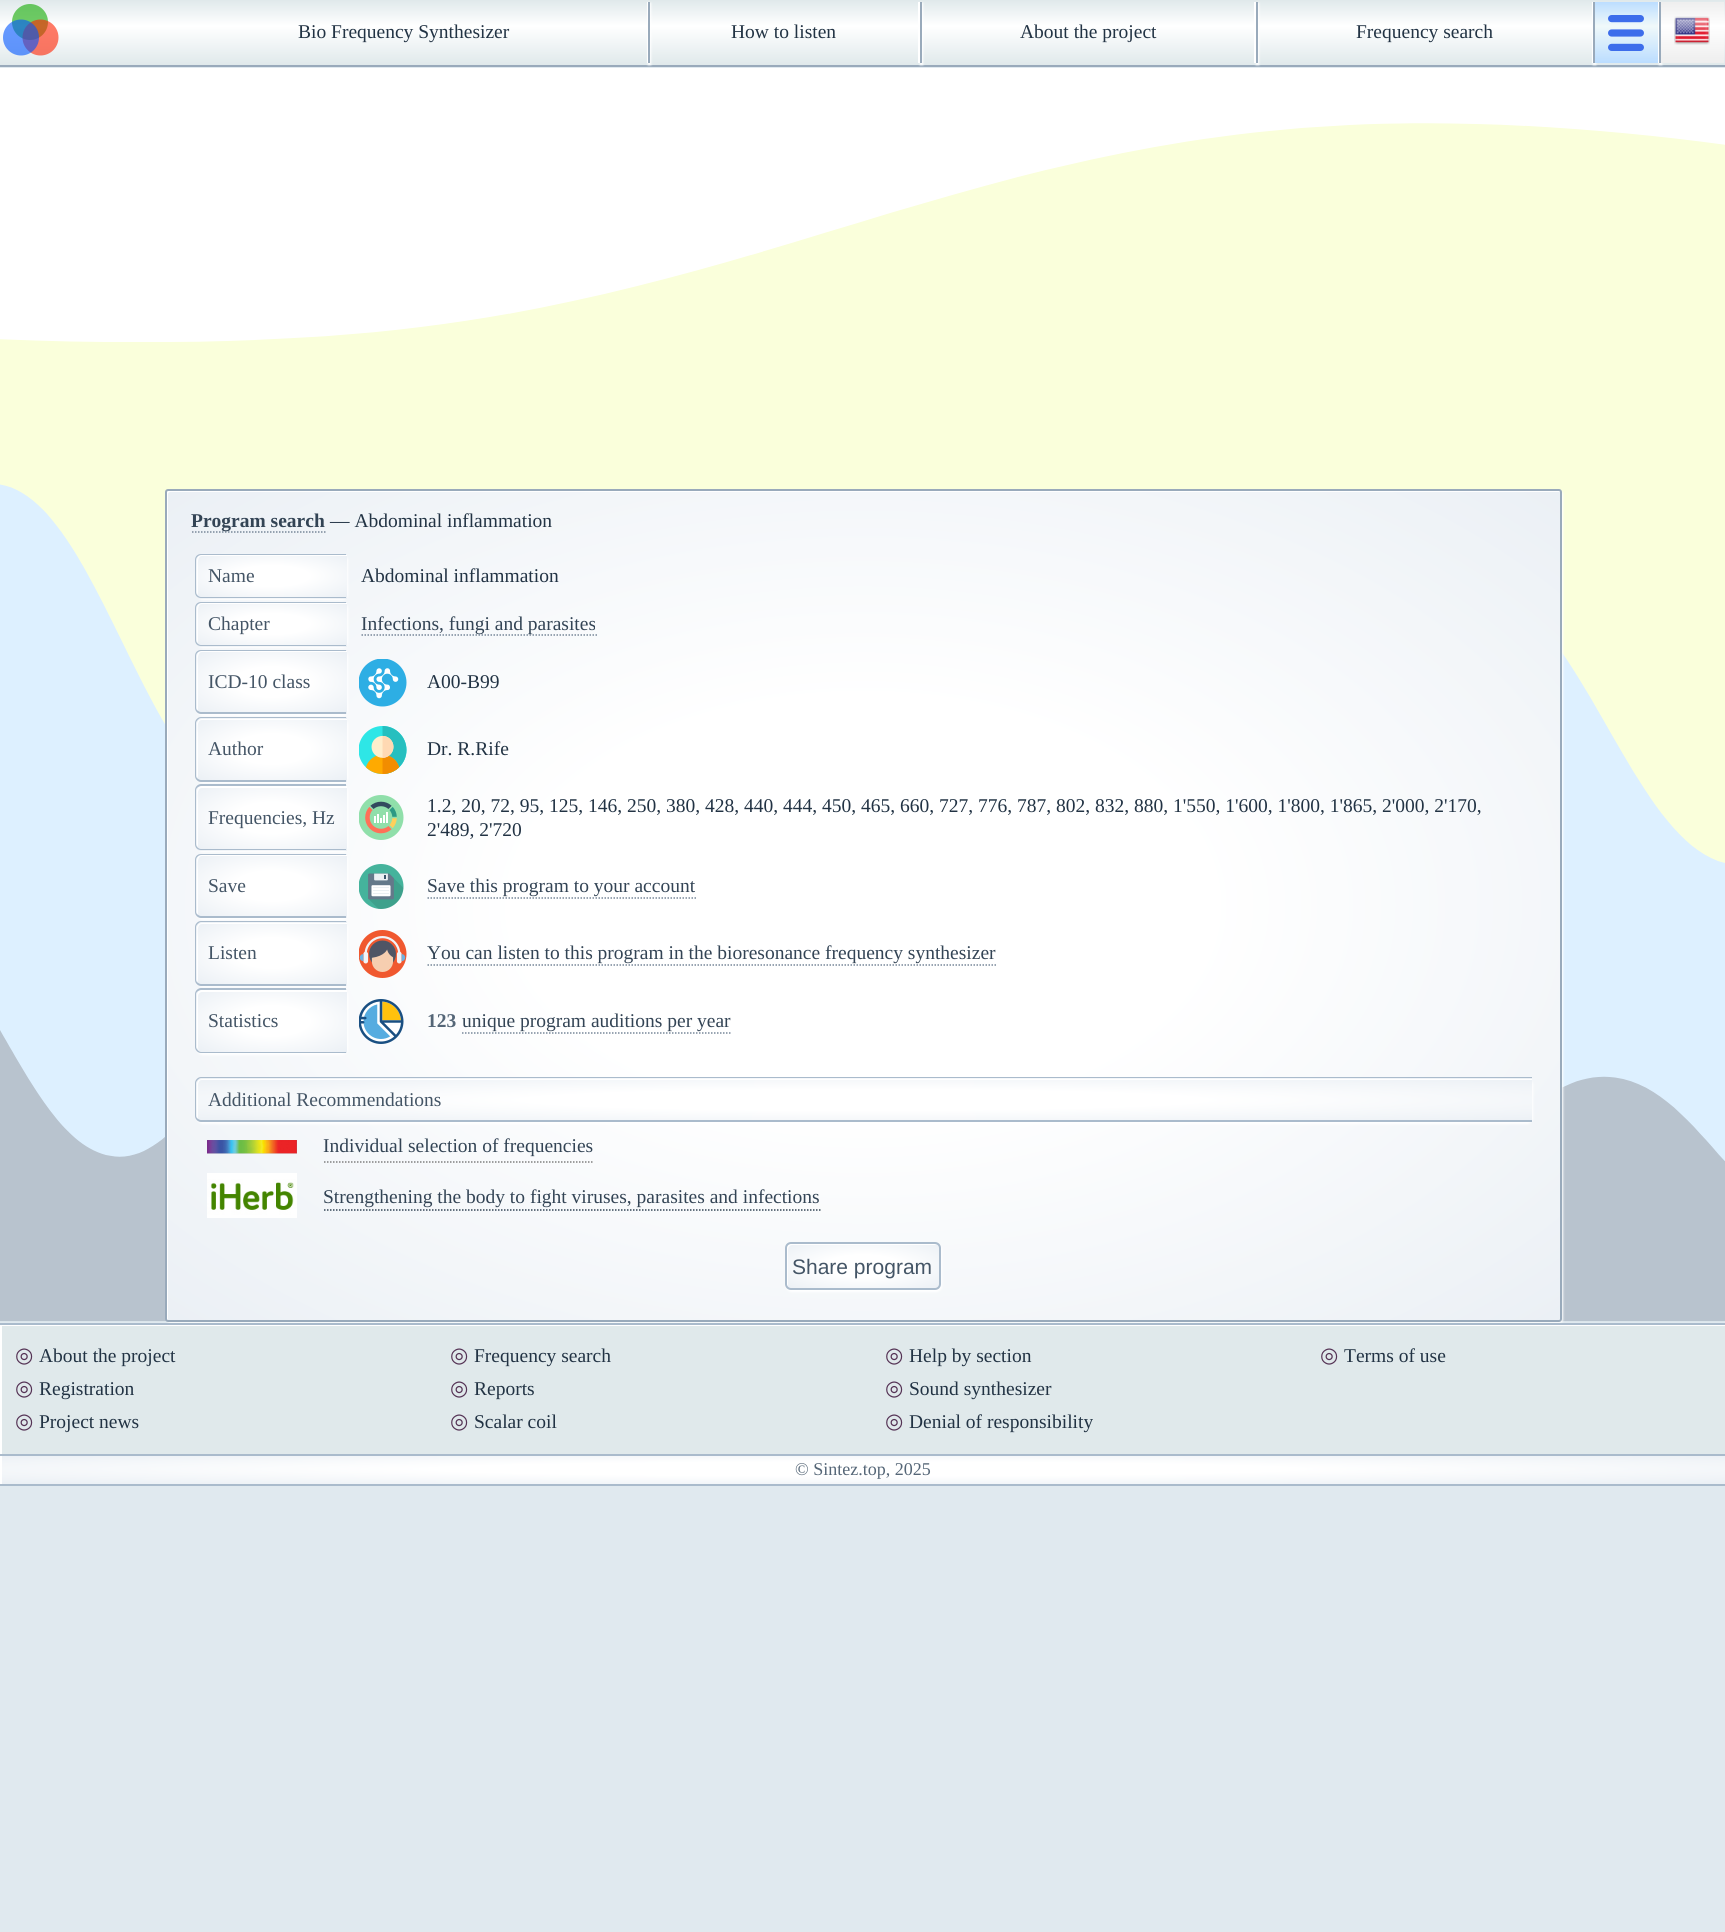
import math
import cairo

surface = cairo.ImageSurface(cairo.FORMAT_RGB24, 1725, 1932)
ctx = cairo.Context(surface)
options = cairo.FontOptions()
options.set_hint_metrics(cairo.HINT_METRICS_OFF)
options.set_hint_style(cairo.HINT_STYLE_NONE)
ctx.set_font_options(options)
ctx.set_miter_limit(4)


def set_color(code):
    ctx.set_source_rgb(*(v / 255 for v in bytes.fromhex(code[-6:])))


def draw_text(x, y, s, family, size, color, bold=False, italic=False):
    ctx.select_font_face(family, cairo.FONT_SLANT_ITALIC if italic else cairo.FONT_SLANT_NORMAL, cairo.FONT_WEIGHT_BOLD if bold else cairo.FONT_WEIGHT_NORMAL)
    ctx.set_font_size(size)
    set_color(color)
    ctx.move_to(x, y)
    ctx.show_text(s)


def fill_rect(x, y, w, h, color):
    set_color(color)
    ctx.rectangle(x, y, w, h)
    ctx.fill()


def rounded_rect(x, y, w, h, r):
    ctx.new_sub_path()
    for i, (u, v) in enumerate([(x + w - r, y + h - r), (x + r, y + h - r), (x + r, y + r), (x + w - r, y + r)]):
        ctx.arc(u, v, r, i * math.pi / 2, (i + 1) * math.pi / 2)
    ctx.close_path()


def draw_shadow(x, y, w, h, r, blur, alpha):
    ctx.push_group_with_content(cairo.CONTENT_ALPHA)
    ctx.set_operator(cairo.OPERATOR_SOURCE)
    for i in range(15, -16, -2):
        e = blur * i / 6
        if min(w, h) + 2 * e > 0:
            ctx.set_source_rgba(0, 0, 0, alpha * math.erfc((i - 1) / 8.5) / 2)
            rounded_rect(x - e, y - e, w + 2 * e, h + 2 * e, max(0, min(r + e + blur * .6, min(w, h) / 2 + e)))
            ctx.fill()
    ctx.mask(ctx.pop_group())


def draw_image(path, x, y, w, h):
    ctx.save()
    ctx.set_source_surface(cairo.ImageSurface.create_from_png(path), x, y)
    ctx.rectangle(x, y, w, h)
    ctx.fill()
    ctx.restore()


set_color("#e0e9ef")
ctx.paint()
gradient = cairo.LinearGradient(863, 0, 863, 65)
gradient.add_color_stop_rgba(0, 0.878, 0.914, 0.922, 1)
gradient.add_color_stop_rgba(0.4, 1, 1, 1, 1)
gradient.add_color_stop_rgba(1, 0.878, 0.914, 0.922, 1)
ctx.set_source(gradient)
ctx.rectangle(0, 0, 1725, 65)
ctx.fill()
fill_rect(0, 65, 1725, 2, "#99aabb")
ctx.set_source_rgba(0.067, 0.667, 0, 0.6)
ctx.arc(30, 22, 18, 0, 2 * math.pi)
ctx.fill()
set_color("#ffffff")
draw_shadow(648, 3, 3, 62, 0, 1, 1)
ctx.save()
ctx.rectangle(647, 2, 2, 61)
ctx.clip()
set_color("#ffffff")
ctx.set_fill_rule(cairo.FILL_RULE_EVEN_ODD)
ctx.new_path()
ctx.move_to(498, -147)
ctx.line_to(796, -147)
ctx.line_to(796, 212)
ctx.line_to(498, 212)
ctx.close_path()
ctx.move_to(648, 3)
ctx.line_to(650, 3)
ctx.line_to(650, 64)
ctx.line_to(648, 64)
ctx.close_path()
ctx.fill()
ctx.restore()
fill_rect(648, 2, 2, 61, "#99aabb")
set_color("#ffffff")
draw_shadow(920, 3, 3, 62, 0, 1, 1)
ctx.save()
ctx.rectangle(918, 2, 2, 61)
ctx.clip()
set_color("#ffffff")
ctx.set_fill_rule(cairo.FILL_RULE_EVEN_ODD)
ctx.new_path()
ctx.move_to(770, -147)
ctx.line_to(1068, -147)
ctx.line_to(1068, 212)
ctx.line_to(770, 212)
ctx.close_path()
ctx.move_to(920, 3)
ctx.line_to(921, 3)
ctx.line_to(921, 64)
ctx.line_to(920, 64)
ctx.close_path()
ctx.fill()
ctx.restore()
fill_rect(920, 2, 2, 61, "#99aabb")
set_color("#ffffff")
draw_shadow(1256, 3, 3, 62, 0, 1, 1)
ctx.save()
ctx.rectangle(1254, 2, 2, 61)
ctx.clip()
set_color("#ffffff")
ctx.set_fill_rule(cairo.FILL_RULE_EVEN_ODD)
ctx.new_path()
ctx.move_to(1106, -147)
ctx.line_to(1404, -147)
ctx.line_to(1404, 212)
ctx.line_to(1106, 212)
ctx.close_path()
ctx.move_to(1256, 3)
ctx.line_to(1257, 3)
ctx.line_to(1257, 64)
ctx.line_to(1256, 64)
ctx.close_path()
ctx.fill()
ctx.restore()
fill_rect(1256, 2, 2, 61, "#99aabb")
set_color("#ffffff")
draw_shadow(1593, 3, 3, 62, 0, 1, 1)
ctx.save()
ctx.rectangle(1592, 2, 2, 61)
ctx.clip()
set_color("#ffffff")
ctx.set_fill_rule(cairo.FILL_RULE_EVEN_ODD)
ctx.new_path()
ctx.move_to(1443, -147)
ctx.line_to(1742, -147)
ctx.line_to(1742, 212)
ctx.line_to(1443, 212)
ctx.close_path()
ctx.move_to(1593, 3)
ctx.line_to(1594, 3)
ctx.line_to(1594, 64)
ctx.line_to(1593, 64)
ctx.close_path()
ctx.fill()
ctx.restore()
fill_rect(1593, 2, 2, 61, "#99aabb")
set_color("#ffffff")
draw_shadow(1659, 3, 3, 62, 0, 1, 1)
gradient = cairo.LinearGradient(1626, 1.5, 1626, 63)
gradient.add_color_stop_rgba(0, 0.733, 0.867, 1, 1)
gradient.add_color_stop_rgba(0.4, 0.941, 0.976, 0.98, 1)
gradient.add_color_stop_rgba(1, 0.733, 0.867, 1, 1)
ctx.set_source(gradient)
ctx.rectangle(1595, 2, 63, 61)
ctx.fill()
draw_image("assets/img1.png", 1608, 15, 36, 36)
ctx.save()
ctx.rectangle(1658, 2, 2, 61)
ctx.clip()
set_color("#ffffff")
ctx.set_fill_rule(cairo.FILL_RULE_EVEN_ODD)
ctx.new_path()
ctx.move_to(1509, -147)
ctx.line_to(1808, -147)
ctx.line_to(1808, 212)
ctx.line_to(1509, 212)
ctx.close_path()
ctx.move_to(1659, 3)
ctx.line_to(1660, 3)
ctx.line_to(1660, 64)
ctx.line_to(1659, 64)
ctx.close_path()
ctx.fill()
ctx.restore()
fill_rect(1659, 2, 2, 61, "#99aabb")
gradient = cairo.LinearGradient(1692, 1.5, 1692, 63)
gradient.add_color_stop_rgba(0, 0.933, 0.933, 0.933, 1)
gradient.add_color_stop_rgba(0.4, 1, 1, 1, 1)
gradient.add_color_stop_rgba(1, 0.933, 0.933, 0.933, 1)
ctx.set_source(gradient)
ctx.rectangle(1661, 2, 63, 61)
ctx.fill()
draw_image("assets/img2.png", 1674, 16, 36, 29)
ctx.set_source_rgba(1, 0.133, 0, 0.6)
ctx.arc(40.5, 37.5, 18, 0, 2 * math.pi)
ctx.fill()
ctx.set_source_rgba(0, 0.333, 1, 0.6)
ctx.arc(21, 37.5, 18, 0, 2 * math.pi)
ctx.fill()
draw_text(298, 38, "Bio Frequency Synthesizer", "Liberation Serif", 19.5, "#223344")
draw_text(731, 38, "How to listen", "Liberation Serif", 19.5, "#223344")
draw_text(1020, 38, "About the project", "Liberation Serif", 19.5, "#223344")
draw_text(1356, 38, "Frequency search", "Liberation Serif", 19.5, "#223344")
draw_image("assets/img3.png", 0, 68, 1725, 1254)
set_color("#ffffff")
draw_shadow(167, 491, 1396, 832, 3, 1, 1)
gradient = cairo.RadialGradient(0, 0, 0, 0, 0, 1)
gradient.set_matrix(cairo.Matrix(1 / 985, 0, 0, 1 / 587, -1 * 863 / 985, -1 * 905 / 587))
gradient.add_color_stop_rgba(0.35, 1, 1, 1, 1)
gradient.add_color_stop_rgba(1, 0.922, 0.941, 0.961, 1)
ctx.set_source(gradient)
ctx.rectangle(167, 491, 1393, 829)
ctx.fill()
set_color("#ffffff")
ctx.new_path()
ctx.move_to(170, 492)
ctx.line_to(1560, 492)
ctx.curve_to(1560, 491, 1559, 491, 1558, 491)
ctx.line_to(168, 491)
ctx.curve_to(168, 491, 167, 492, 167, 492)
ctx.line_to(167, 1318)
ctx.curve_to(167, 1319, 167, 1320, 168, 1320)
ctx.line_to(168, 494)
ctx.curve_to(168, 493, 169, 492, 170, 492)
ctx.close_path()
ctx.fill()
rounded_rect(166, 490, 1395, 831, 2)
set_color("#99aabb")
ctx.stroke()
ctx.new_path()
ctx.move_to(192, 532)
ctx.line_to(325.5, 532)
set_color("#778899")
ctx.set_line_width(1.5)
ctx.set_dash([1.5, 1.5])
ctx.stroke()
draw_text(191, 527, "Program search", "Liberation Serif", 19.5, "#334455", bold=True)
draw_text(330, 527, "— Abdominal inflammation", "Liberation Serif", 19.5, "#223344")
set_color("#ffffff")
draw_shadow(197, 555, 151, 45, 6, 1, 1)
ctx.save()
ctx.new_path()
ctx.move_to(201, 554)
ctx.line_to(347, 554)
ctx.line_to(347, 599)
ctx.line_to(201, 599)
ctx.curve_to(197.5, 599, 195, 596.5, 195, 593)
ctx.line_to(195, 560)
ctx.curve_to(195, 556.5, 197.5, 554, 201, 554)
ctx.close_path()
ctx.clip()
gradient = cairo.RadialGradient(0, 0, 0, 0, 0, 1)
gradient.set_matrix(cairo.Matrix(1 / 106, 0, 0, 1 / 30, -1 * 272 / 106, -1 * 534 / 30))
gradient.add_color_stop_rgba(0.35, 1, 1, 1, 1)
gradient.add_color_stop_rgba(1, 0.922, 0.941, 0.961, 1)
ctx.set_source(gradient)
ctx.rectangle(197, 554, 150, 1)
ctx.fill()
gradient = cairo.RadialGradient(0, 0, 0, 0, 0, 1)
gradient.set_matrix(cairo.Matrix(1 / 106, 0, 0, 1 / 30, -1 * 122 / 106, -1 * 576 / 30))
gradient.add_color_stop_rgba(0.35, 1, 1, 1, 1)
gradient.add_color_stop_rgba(1, 0.922, 0.941, 0.961, 1)
ctx.set_source(gradient)
ctx.rectangle(195, 555, 2, 42)
ctx.fill()
ctx.restore()
gradient = cairo.RadialGradient(0, 0, 0, 0, 0, 1)
gradient.set_matrix(cairo.Matrix(1 / 106, 0, 0, 1 / 30, -1 * 272 / 106, -1 * 576 / 30))
gradient.add_color_stop_rgba(0.35, 1, 1, 1, 1)
gradient.add_color_stop_rgba(1, 0.922, 0.941, 0.961, 1)
ctx.set_source(gradient)
ctx.rectangle(197, 555, 150, 42)
ctx.fill()
ctx.save()
ctx.new_path()
ctx.move_to(201, 554)
ctx.line_to(347, 554)
ctx.line_to(347, 599)
ctx.line_to(201, 599)
ctx.curve_to(197.5, 599, 195, 596.5, 195, 593)
ctx.line_to(195, 560)
ctx.curve_to(195, 556.5, 197.5, 554, 201, 554)
ctx.close_path()
ctx.clip()
gradient = cairo.RadialGradient(0, 0, 0, 0, 0, 1)
gradient.set_matrix(cairo.Matrix(1 / 106, 0, 0, 1 / 30, -1 * 272 / 106, -1 * 618 / 30))
gradient.add_color_stop_rgba(0.35, 1, 1, 1, 1)
gradient.add_color_stop_rgba(1, 0.922, 0.941, 0.961, 1)
ctx.set_source(gradient)
ctx.rectangle(197, 597, 150, 2)
ctx.fill()
ctx.restore()
set_color("#ffffff")
ctx.new_path()
ctx.move_to(202, 556)
ctx.line_to(347, 556)
ctx.line_to(347, 555)
ctx.line_to(202, 555)
ctx.curve_to(199, 555, 197, 557, 197, 560)
ctx.line_to(197, 592)
ctx.curve_to(197, 593, 197, 594, 198, 595)
ctx.line_to(198, 566)
ctx.curve_to(198, 564, 197, 556, 202, 556)
ctx.close_path()
ctx.fill()
set_color("#aabbcc")
ctx.set_fill_rule(cairo.FILL_RULE_EVEN_ODD)
ctx.new_path()
ctx.move_to(201, 554)
ctx.line_to(346, 554)
ctx.line_to(346, 598)
ctx.line_to(201, 598)
ctx.curve_to(198, 598, 195, 596, 195, 592)
ctx.line_to(195, 560)
ctx.curve_to(195, 556, 198, 554, 201, 554)
ctx.close_path()
ctx.move_to(201, 555)
ctx.line_to(346, 555)
ctx.line_to(346, 597)
ctx.line_to(201, 597)
ctx.curve_to(199, 597, 196, 595, 196, 592)
ctx.line_to(196, 560)
ctx.curve_to(196, 557, 199, 555, 201, 555)
ctx.close_path()
ctx.fill()
draw_text(208, 582, "Name", "Liberation Serif", 19.5, "#445566")
draw_text(361, 582, "Abdominal inflammation", "Liberation Serif", 19.5, "#223344")
set_color("#ffffff")
draw_shadow(197, 603, 151, 45, 6, 1, 1)
ctx.save()
ctx.set_fill_rule(cairo.FILL_RULE_WINDING)
ctx.new_path()
ctx.move_to(201, 602)
ctx.line_to(347, 602)
ctx.line_to(347, 647)
ctx.line_to(201, 647)
ctx.curve_to(197.5, 647, 195, 644.5, 195, 641)
ctx.line_to(195, 608)
ctx.curve_to(195, 604.5, 197.5, 602, 201, 602)
ctx.close_path()
ctx.clip()
gradient = cairo.RadialGradient(0, 0, 0, 0, 0, 1)
gradient.set_matrix(cairo.Matrix(1 / 106, 0, 0, 1 / 30, -1 * 272 / 106, -1 * 582 / 30))
gradient.add_color_stop_rgba(0.35, 1, 1, 1, 1)
gradient.add_color_stop_rgba(1, 0.922, 0.941, 0.961, 1)
ctx.set_source(gradient)
ctx.rectangle(197, 602, 150, 1)
ctx.fill()
gradient = cairo.RadialGradient(0, 0, 0, 0, 0, 1)
gradient.set_matrix(cairo.Matrix(1 / 106, 0, 0, 1 / 30, -1 * 122 / 106, -1 * 624 / 30))
gradient.add_color_stop_rgba(0.35, 1, 1, 1, 1)
gradient.add_color_stop_rgba(1, 0.922, 0.941, 0.961, 1)
ctx.set_source(gradient)
ctx.rectangle(195, 603, 2, 42)
ctx.fill()
ctx.restore()
gradient = cairo.RadialGradient(0, 0, 0, 0, 0, 1)
gradient.set_matrix(cairo.Matrix(1 / 106, 0, 0, 1 / 30, -1 * 272 / 106, -1 * 624 / 30))
gradient.add_color_stop_rgba(0.35, 1, 1, 1, 1)
gradient.add_color_stop_rgba(1, 0.922, 0.941, 0.961, 1)
ctx.set_source(gradient)
ctx.rectangle(197, 603, 150, 42)
ctx.fill()
ctx.save()
ctx.set_fill_rule(cairo.FILL_RULE_WINDING)
ctx.new_path()
ctx.move_to(201, 602)
ctx.line_to(347, 602)
ctx.line_to(347, 647)
ctx.line_to(201, 647)
ctx.curve_to(197.5, 647, 195, 644.5, 195, 641)
ctx.line_to(195, 608)
ctx.curve_to(195, 604.5, 197.5, 602, 201, 602)
ctx.close_path()
ctx.clip()
gradient = cairo.RadialGradient(0, 0, 0, 0, 0, 1)
gradient.set_matrix(cairo.Matrix(1 / 106, 0, 0, 1 / 30, -1 * 272 / 106, -1 * 666 / 30))
gradient.add_color_stop_rgba(0.35, 1, 1, 1, 1)
gradient.add_color_stop_rgba(1, 0.922, 0.941, 0.961, 1)
ctx.set_source(gradient)
ctx.rectangle(197, 645, 150, 2)
ctx.fill()
ctx.restore()
set_color("#ffffff")
ctx.set_fill_rule(cairo.FILL_RULE_WINDING)
ctx.new_path()
ctx.move_to(202, 604)
ctx.line_to(347, 604)
ctx.line_to(347, 603)
ctx.line_to(202, 603)
ctx.curve_to(199, 603, 197, 605, 197, 608)
ctx.line_to(197, 640)
ctx.curve_to(197, 641, 197, 642, 198, 643)
ctx.line_to(198, 614)
ctx.curve_to(198, 612, 197, 604, 202, 604)
ctx.close_path()
ctx.fill()
set_color("#aabbcc")
ctx.set_fill_rule(cairo.FILL_RULE_EVEN_ODD)
ctx.new_path()
ctx.move_to(201, 602)
ctx.line_to(346, 602)
ctx.line_to(346, 646)
ctx.line_to(201, 646)
ctx.curve_to(198, 646, 195, 644, 195, 640)
ctx.line_to(195, 608)
ctx.curve_to(195, 604, 198, 602, 201, 602)
ctx.close_path()
ctx.move_to(201, 603)
ctx.line_to(346, 603)
ctx.line_to(346, 645)
ctx.line_to(201, 645)
ctx.curve_to(199, 645, 196, 643, 196, 640)
ctx.line_to(196, 608)
ctx.curve_to(196, 605, 199, 603, 201, 603)
ctx.close_path()
ctx.fill()
draw_text(208, 630, "Chapter", "Liberation Serif", 19.5, "#445566")
ctx.new_path()
ctx.move_to(361.5, 635)
ctx.line_to(597, 635)
set_color("#778899")
ctx.stroke()
draw_text(361, 630, "Infections, fungi and parasites", "Liberation Serif", 19.5, "#334455")
set_color("#ffffff")
draw_shadow(197, 651, 151, 65, 6, 1, 1)
ctx.save()
ctx.set_fill_rule(cairo.FILL_RULE_WINDING)
ctx.new_path()
ctx.move_to(201, 650)
ctx.line_to(347, 650)
ctx.line_to(347, 714)
ctx.line_to(201, 714)
ctx.curve_to(197.5, 714, 195, 711.5, 195, 708)
ctx.line_to(195, 656)
ctx.curve_to(195, 652.5, 197.5, 650, 201, 650)
ctx.close_path()
ctx.clip()
gradient = cairo.RadialGradient(0, 0, 0, 0, 0, 1)
gradient.set_matrix(cairo.Matrix(1 / 106, 0, 0, 1 / 43, -1 * 272 / 106, -1 * 620 / 43))
gradient.add_color_stop_rgba(0.35, 1, 1, 1, 1)
gradient.add_color_stop_rgba(1, 0.922, 0.941, 0.961, 1)
ctx.set_source(gradient)
ctx.rectangle(197, 650, 150, 1)
ctx.fill()
gradient = cairo.RadialGradient(0, 0, 0, 0, 0, 1)
gradient.set_matrix(cairo.Matrix(1 / 106, 0, 0, 1 / 43, -1 * 122 / 106, -1 * 682 / 43))
gradient.add_color_stop_rgba(0.35, 1, 1, 1, 1)
gradient.add_color_stop_rgba(1, 0.922, 0.941, 0.961, 1)
ctx.set_source(gradient)
ctx.rectangle(195, 651, 2, 62)
ctx.fill()
ctx.restore()
gradient = cairo.RadialGradient(0, 0, 0, 0, 0, 1)
gradient.set_matrix(cairo.Matrix(1 / 106, 0, 0, 1 / 43, -1 * 272 / 106, -1 * 682 / 43))
gradient.add_color_stop_rgba(0.35, 1, 1, 1, 1)
gradient.add_color_stop_rgba(1, 0.922, 0.941, 0.961, 1)
ctx.set_source(gradient)
ctx.rectangle(197, 651, 150, 62)
ctx.fill()
ctx.save()
ctx.set_fill_rule(cairo.FILL_RULE_WINDING)
ctx.new_path()
ctx.move_to(201, 650)
ctx.line_to(347, 650)
ctx.line_to(347, 714)
ctx.line_to(201, 714)
ctx.curve_to(197.5, 714, 195, 711.5, 195, 708)
ctx.line_to(195, 656)
ctx.curve_to(195, 652.5, 197.5, 650, 201, 650)
ctx.close_path()
ctx.clip()
gradient = cairo.RadialGradient(0, 0, 0, 0, 0, 1)
gradient.set_matrix(cairo.Matrix(1 / 106, 0, 0, 1 / 43, -1 * 272 / 106, -1 * 743 / 43))
gradient.add_color_stop_rgba(0.35, 1, 1, 1, 1)
gradient.add_color_stop_rgba(1, 0.922, 0.941, 0.961, 1)
ctx.set_source(gradient)
ctx.rectangle(197, 713, 150, 1)
ctx.fill()
ctx.restore()
set_color("#ffffff")
ctx.set_fill_rule(cairo.FILL_RULE_WINDING)
ctx.new_path()
ctx.move_to(202, 652)
ctx.line_to(347, 652)
ctx.line_to(347, 651)
ctx.line_to(202, 651)
ctx.curve_to(199, 651, 197, 653, 197, 656)
ctx.line_to(197, 708)
ctx.curve_to(197, 709, 197, 710, 198, 711)
ctx.line_to(198, 666)
ctx.curve_to(198, 665, 196, 652, 202, 652)
ctx.close_path()
ctx.fill()
set_color("#aabbcc")
ctx.set_fill_rule(cairo.FILL_RULE_EVEN_ODD)
ctx.new_path()
ctx.move_to(201, 650)
ctx.line_to(346, 650)
ctx.line_to(346, 714)
ctx.line_to(201, 714)
ctx.curve_to(198, 714, 195, 711, 195, 708)
ctx.line_to(195, 656)
ctx.curve_to(195, 652, 198, 650, 201, 650)
ctx.close_path()
ctx.move_to(201, 651)
ctx.line_to(346, 651)
ctx.line_to(346, 712)
ctx.line_to(201, 712)
ctx.curve_to(199, 712, 196, 710, 196, 708)
ctx.line_to(196, 656)
ctx.curve_to(196, 653, 199, 651, 201, 651)
ctx.close_path()
ctx.fill()
draw_text(208, 688, "ICD-10 class", "Liberation Serif", 19.5, "#445566")
draw_image("assets/img4.png", 359, 659, 48, 48)
draw_text(427, 688, "A00-B99", "Liberation Serif", 19.5, "#223344")
set_color("#ffffff")
draw_shadow(197, 719, 151, 64, 6, 1, 1)
ctx.save()
ctx.set_fill_rule(cairo.FILL_RULE_WINDING)
ctx.new_path()
ctx.move_to(201, 717)
ctx.line_to(347, 717)
ctx.line_to(347, 782)
ctx.line_to(201, 782)
ctx.curve_to(197.5, 782, 195, 779.5, 195, 776)
ctx.line_to(195, 723)
ctx.curve_to(195, 719.5, 197.5, 717, 201, 717)
ctx.close_path()
ctx.clip()
gradient = cairo.RadialGradient(0, 0, 0, 0, 0, 1)
gradient.set_matrix(cairo.Matrix(1 / 106, 0, 0, 1 / 43, -1 * 272 / 106, -1 * 688 / 43))
gradient.add_color_stop_rgba(0.35, 1, 1, 1, 1)
gradient.add_color_stop_rgba(1, 0.922, 0.941, 0.961, 1)
ctx.set_source(gradient)
ctx.rectangle(197, 717, 150, 2)
ctx.fill()
gradient = cairo.RadialGradient(0, 0, 0, 0, 0, 1)
gradient.set_matrix(cairo.Matrix(1 / 106, 0, 0, 1 / 43, -1 * 122 / 106, -1 * 749 / 43))
gradient.add_color_stop_rgba(0.35, 1, 1, 1, 1)
gradient.add_color_stop_rgba(1, 0.922, 0.941, 0.961, 1)
ctx.set_source(gradient)
ctx.rectangle(195, 719, 2, 61)
ctx.fill()
ctx.restore()
gradient = cairo.RadialGradient(0, 0, 0, 0, 0, 1)
gradient.set_matrix(cairo.Matrix(1 / 106, 0, 0, 1 / 43, -1 * 272 / 106, -1 * 749 / 43))
gradient.add_color_stop_rgba(0.35, 1, 1, 1, 1)
gradient.add_color_stop_rgba(1, 0.922, 0.941, 0.961, 1)
ctx.set_source(gradient)
ctx.rectangle(197, 719, 150, 61)
ctx.fill()
ctx.save()
ctx.set_fill_rule(cairo.FILL_RULE_WINDING)
ctx.new_path()
ctx.move_to(201, 717)
ctx.line_to(347, 717)
ctx.line_to(347, 782)
ctx.line_to(201, 782)
ctx.curve_to(197.5, 782, 195, 779.5, 195, 776)
ctx.line_to(195, 723)
ctx.curve_to(195, 719.5, 197.5, 717, 201, 717)
ctx.close_path()
ctx.clip()
gradient = cairo.RadialGradient(0, 0, 0, 0, 0, 1)
gradient.set_matrix(cairo.Matrix(1 / 106, 0, 0, 1 / 43, -1 * 272 / 106, -1 * 811 / 43))
gradient.add_color_stop_rgba(0.35, 1, 1, 1, 1)
gradient.add_color_stop_rgba(1, 0.922, 0.941, 0.961, 1)
ctx.set_source(gradient)
ctx.rectangle(197, 780, 150, 2)
ctx.fill()
ctx.restore()
set_color("#ffffff")
ctx.set_fill_rule(cairo.FILL_RULE_WINDING)
ctx.new_path()
ctx.move_to(202, 720)
ctx.line_to(347, 720)
ctx.line_to(347, 719)
ctx.line_to(202, 719)
ctx.curve_to(199, 719, 197, 721, 197, 724)
ctx.line_to(197, 775)
ctx.curve_to(197, 776, 197, 777, 198, 778)
ctx.line_to(198, 733)
ctx.curve_to(198, 731, 196, 720, 202, 720)
ctx.close_path()
ctx.fill()
set_color("#aabbcc")
ctx.set_fill_rule(cairo.FILL_RULE_EVEN_ODD)
ctx.new_path()
ctx.move_to(201, 717)
ctx.line_to(346, 717)
ctx.line_to(346, 782)
ctx.line_to(201, 782)
ctx.curve_to(198, 782, 195, 779, 195, 776)
ctx.line_to(195, 723)
ctx.curve_to(195, 720, 198, 717, 201, 717)
ctx.close_path()
ctx.move_to(201, 718)
ctx.line_to(346, 718)
ctx.line_to(346, 780)
ctx.line_to(201, 780)
ctx.curve_to(199, 780, 196, 778, 196, 776)
ctx.line_to(196, 723)
ctx.curve_to(196, 721, 199, 718, 201, 718)
ctx.close_path()
ctx.fill()
draw_text(208, 755, "Author", "Liberation Serif", 19.5, "#445566")
draw_image("assets/img5.png", 359, 726, 48, 48)
draw_text(427, 755, "Dr. R.Rife", "Liberation Serif", 19.5, "#223344")
set_color("#ffffff")
draw_shadow(197, 786, 151, 66, 6, 1, 1)
gradient = cairo.RadialGradient(0, 0, 0, 0, 0, 1)
gradient.set_matrix(cairo.Matrix(1 / 106, 0, 0, 1 / 45, -1 * 272 / 106, -1 * 755 / 45))
gradient.add_color_stop_rgba(0.35, 1, 1, 1, 1)
gradient.add_color_stop_rgba(1, 0.922, 0.941, 0.961, 1)
ctx.set_source(gradient)
ctx.rectangle(197, 785, 150, 1)
ctx.fill()
ctx.save()
ctx.set_fill_rule(cairo.FILL_RULE_WINDING)
ctx.new_path()
ctx.move_to(201, 785)
ctx.line_to(347, 785)
ctx.line_to(347, 851)
ctx.line_to(201, 851)
ctx.curve_to(197.5, 851, 195, 848.5, 195, 845)
ctx.line_to(195, 791)
ctx.curve_to(195, 787.5, 197.5, 785, 201, 785)
ctx.close_path()
ctx.clip()
gradient = cairo.RadialGradient(0, 0, 0, 0, 0, 1)
gradient.set_matrix(cairo.Matrix(1 / 106, 0, 0, 1 / 45, -1 * 122 / 106, -1 * 818 / 45))
gradient.add_color_stop_rgba(0.35, 1, 1, 1, 1)
gradient.add_color_stop_rgba(1, 0.922, 0.941, 0.961, 1)
ctx.set_source(gradient)
ctx.rectangle(195, 786, 2, 63)
ctx.fill()
ctx.restore()
gradient = cairo.RadialGradient(0, 0, 0, 0, 0, 1)
gradient.set_matrix(cairo.Matrix(1 / 106, 0, 0, 1 / 45, -1 * 272 / 106, -1 * 818 / 45))
gradient.add_color_stop_rgba(0.35, 1, 1, 1, 1)
gradient.add_color_stop_rgba(1, 0.922, 0.941, 0.961, 1)
ctx.set_source(gradient)
ctx.rectangle(197, 786, 150, 63)
ctx.fill()
ctx.save()
ctx.set_fill_rule(cairo.FILL_RULE_WINDING)
ctx.new_path()
ctx.move_to(201, 785)
ctx.line_to(347, 785)
ctx.line_to(347, 851)
ctx.line_to(201, 851)
ctx.curve_to(197.5, 851, 195, 848.5, 195, 845)
ctx.line_to(195, 791)
ctx.curve_to(195, 787.5, 197.5, 785, 201, 785)
ctx.close_path()
ctx.clip()
gradient = cairo.RadialGradient(0, 0, 0, 0, 0, 1)
gradient.set_matrix(cairo.Matrix(1 / 106, 0, 0, 1 / 45, -1 * 272 / 106, -1 * 881 / 45))
gradient.add_color_stop_rgba(0.35, 1, 1, 1, 1)
gradient.add_color_stop_rgba(1, 0.922, 0.941, 0.961, 1)
ctx.set_source(gradient)
ctx.rectangle(197, 849, 150, 2)
ctx.fill()
ctx.restore()
set_color("#ffffff")
ctx.set_fill_rule(cairo.FILL_RULE_WINDING)
ctx.new_path()
ctx.move_to(202, 788)
ctx.line_to(347, 788)
ctx.line_to(347, 786)
ctx.line_to(202, 786)
ctx.curve_to(199, 786, 197, 788, 197, 791)
ctx.line_to(197, 844)
ctx.curve_to(197, 845, 197, 846, 198, 847)
ctx.line_to(198, 801)
ctx.curve_to(198, 799, 196, 788, 202, 788)
ctx.close_path()
ctx.fill()
set_color("#aabbcc")
ctx.set_fill_rule(cairo.FILL_RULE_EVEN_ODD)
ctx.new_path()
ctx.move_to(201, 784)
ctx.line_to(346, 784)
ctx.line_to(346, 850)
ctx.line_to(201, 850)
ctx.curve_to(198, 850, 195, 848, 195, 844)
ctx.line_to(195, 790)
ctx.curve_to(195, 787, 198, 784, 201, 784)
ctx.close_path()
ctx.move_to(201, 786)
ctx.line_to(346, 786)
ctx.line_to(346, 849)
ctx.line_to(201, 849)
ctx.curve_to(199, 849, 196, 847, 196, 844)
ctx.line_to(196, 790)
ctx.curve_to(196, 788, 199, 786, 201, 786)
ctx.close_path()
ctx.fill()
draw_text(208, 824, "Frequencies, Hz", "Liberation Serif", 19.5, "#445566")
draw_image("assets/img6.png", 359, 795, 45, 45)
draw_text(427, 812, "1.2, 20, 72, 95, 125, 146, 250, 380, 428, 440, 444, 450, 465, 660, 727, 776, 787, 802, 832, 880, 1'550, 1'600, 1'800, 1'865, 2'000, 2'170,", "Liberation Serif", 19.5, "#223344")
draw_text(427, 836, "2'489, 2'720", "Liberation Serif", 19.5, "#223344")
set_color("#ffffff")
draw_shadow(197, 855, 151, 65, 6, 1, 1)
ctx.save()
ctx.set_fill_rule(cairo.FILL_RULE_WINDING)
ctx.new_path()
ctx.move_to(201, 854)
ctx.line_to(347, 854)
ctx.line_to(347, 918)
ctx.line_to(201, 918)
ctx.curve_to(197.5, 918, 195, 915.5, 195, 912)
ctx.line_to(195, 860)
ctx.curve_to(195, 856.5, 197.5, 854, 201, 854)
ctx.close_path()
ctx.clip()
gradient = cairo.RadialGradient(0, 0, 0, 0, 0, 1)
gradient.set_matrix(cairo.Matrix(1 / 106, 0, 0, 1 / 43, -1 * 272 / 106, -1 * 824 / 43))
gradient.add_color_stop_rgba(0.35, 1, 1, 1, 1)
gradient.add_color_stop_rgba(1, 0.922, 0.941, 0.961, 1)
ctx.set_source(gradient)
ctx.rectangle(197, 854, 150, 1)
ctx.fill()
gradient = cairo.RadialGradient(0, 0, 0, 0, 0, 1)
gradient.set_matrix(cairo.Matrix(1 / 106, 0, 0, 1 / 43, -1 * 122 / 106, -1 * 886 / 43))
gradient.add_color_stop_rgba(0.35, 1, 1, 1, 1)
gradient.add_color_stop_rgba(1, 0.922, 0.941, 0.961, 1)
ctx.set_source(gradient)
ctx.rectangle(195, 855, 2, 62)
ctx.fill()
ctx.restore()
gradient = cairo.RadialGradient(0, 0, 0, 0, 0, 1)
gradient.set_matrix(cairo.Matrix(1 / 106, 0, 0, 1 / 43, -1 * 272 / 106, -1 * 886 / 43))
gradient.add_color_stop_rgba(0.35, 1, 1, 1, 1)
gradient.add_color_stop_rgba(1, 0.922, 0.941, 0.961, 1)
ctx.set_source(gradient)
ctx.rectangle(197, 855, 150, 62)
ctx.fill()
ctx.save()
ctx.set_fill_rule(cairo.FILL_RULE_WINDING)
ctx.new_path()
ctx.move_to(201, 854)
ctx.line_to(347, 854)
ctx.line_to(347, 918)
ctx.line_to(201, 918)
ctx.curve_to(197.5, 918, 195, 915.5, 195, 912)
ctx.line_to(195, 860)
ctx.curve_to(195, 856.5, 197.5, 854, 201, 854)
ctx.close_path()
ctx.clip()
gradient = cairo.RadialGradient(0, 0, 0, 0, 0, 1)
gradient.set_matrix(cairo.Matrix(1 / 106, 0, 0, 1 / 43, -1 * 272 / 106, -1 * 947 / 43))
gradient.add_color_stop_rgba(0.35, 1, 1, 1, 1)
gradient.add_color_stop_rgba(1, 0.922, 0.941, 0.961, 1)
ctx.set_source(gradient)
ctx.rectangle(197, 917, 150, 1)
ctx.fill()
ctx.restore()
set_color("#ffffff")
ctx.set_fill_rule(cairo.FILL_RULE_WINDING)
ctx.new_path()
ctx.move_to(202, 856)
ctx.line_to(347, 856)
ctx.line_to(347, 855)
ctx.line_to(202, 855)
ctx.curve_to(199, 855, 197, 857, 197, 860)
ctx.line_to(197, 912)
ctx.curve_to(197, 913, 197, 914, 198, 915)
ctx.line_to(198, 870)
ctx.curve_to(198, 869, 196, 856, 202, 856)
ctx.close_path()
ctx.fill()
set_color("#aabbcc")
ctx.set_fill_rule(cairo.FILL_RULE_EVEN_ODD)
ctx.new_path()
ctx.move_to(201, 854)
ctx.line_to(346, 854)
ctx.line_to(346, 918)
ctx.line_to(201, 918)
ctx.curve_to(198, 918, 195, 915, 195, 912)
ctx.line_to(195, 860)
ctx.curve_to(195, 856, 198, 854, 201, 854)
ctx.close_path()
ctx.move_to(201, 855)
ctx.line_to(346, 855)
ctx.line_to(346, 916)
ctx.line_to(201, 916)
ctx.curve_to(199, 916, 196, 914, 196, 912)
ctx.line_to(196, 860)
ctx.curve_to(196, 857, 199, 855, 201, 855)
ctx.close_path()
ctx.fill()
draw_text(208, 892, "Save", "Liberation Serif", 19.5, "#445566")
draw_image("assets/img7.png", 359, 864, 45, 45)
draw_text(427, 892, "Save this program to your account", "Liberation Serif", 19.5, "#334455")
ctx.new_path()
ctx.move_to(427.5, 898)
ctx.line_to(696, 898)
set_color("#778899")
ctx.stroke()
set_color("#ffffff")
draw_shadow(197, 923, 151, 64, 6, 1, 1)
ctx.save()
ctx.set_fill_rule(cairo.FILL_RULE_WINDING)
ctx.new_path()
ctx.move_to(201, 921)
ctx.line_to(347, 921)
ctx.line_to(347, 986)
ctx.line_to(201, 986)
ctx.curve_to(197.5, 986, 195, 983.5, 195, 980)
ctx.line_to(195, 927)
ctx.curve_to(195, 923.5, 197.5, 921, 201, 921)
ctx.close_path()
ctx.clip()
gradient = cairo.RadialGradient(0, 0, 0, 0, 0, 1)
gradient.set_matrix(cairo.Matrix(1 / 106, 0, 0, 1 / 43, -1 * 272 / 106, -1 * 892 / 43))
gradient.add_color_stop_rgba(0.35, 1, 1, 1, 1)
gradient.add_color_stop_rgba(1, 0.922, 0.941, 0.961, 1)
ctx.set_source(gradient)
ctx.rectangle(197, 921, 150, 2)
ctx.fill()
gradient = cairo.RadialGradient(0, 0, 0, 0, 0, 1)
gradient.set_matrix(cairo.Matrix(1 / 106, 0, 0, 1 / 43, -1 * 122 / 106, -1 * 953 / 43))
gradient.add_color_stop_rgba(0.35, 1, 1, 1, 1)
gradient.add_color_stop_rgba(1, 0.922, 0.941, 0.961, 1)
ctx.set_source(gradient)
ctx.rectangle(195, 923, 2, 61)
ctx.fill()
ctx.restore()
gradient = cairo.RadialGradient(0, 0, 0, 0, 0, 1)
gradient.set_matrix(cairo.Matrix(1 / 106, 0, 0, 1 / 43, -1 * 272 / 106, -1 * 953 / 43))
gradient.add_color_stop_rgba(0.35, 1, 1, 1, 1)
gradient.add_color_stop_rgba(1, 0.922, 0.941, 0.961, 1)
ctx.set_source(gradient)
ctx.rectangle(197, 923, 150, 61)
ctx.fill()
ctx.save()
ctx.set_fill_rule(cairo.FILL_RULE_WINDING)
ctx.new_path()
ctx.move_to(201, 921)
ctx.line_to(347, 921)
ctx.line_to(347, 986)
ctx.line_to(201, 986)
ctx.curve_to(197.5, 986, 195, 983.5, 195, 980)
ctx.line_to(195, 927)
ctx.curve_to(195, 923.5, 197.5, 921, 201, 921)
ctx.close_path()
ctx.clip()
gradient = cairo.RadialGradient(0, 0, 0, 0, 0, 1)
gradient.set_matrix(cairo.Matrix(1 / 106, 0, 0, 1 / 43, -1 * 272 / 106, -1 * 1015 / 43))
gradient.add_color_stop_rgba(0.35, 1, 1, 1, 1)
gradient.add_color_stop_rgba(1, 0.922, 0.941, 0.961, 1)
ctx.set_source(gradient)
ctx.rectangle(197, 984, 150, 2)
ctx.fill()
ctx.restore()
set_color("#ffffff")
ctx.set_fill_rule(cairo.FILL_RULE_WINDING)
ctx.new_path()
ctx.move_to(202, 924)
ctx.line_to(347, 924)
ctx.line_to(347, 923)
ctx.line_to(202, 923)
ctx.curve_to(199, 923, 197, 925, 197, 928)
ctx.line_to(197, 979)
ctx.curve_to(197, 980, 197, 981, 198, 982)
ctx.line_to(198, 937)
ctx.curve_to(198, 935, 196, 924, 202, 924)
ctx.close_path()
ctx.fill()
set_color("#aabbcc")
ctx.set_fill_rule(cairo.FILL_RULE_EVEN_ODD)
ctx.new_path()
ctx.move_to(201, 921)
ctx.line_to(346, 921)
ctx.line_to(346, 986)
ctx.line_to(201, 986)
ctx.curve_to(198, 986, 195, 983, 195, 980)
ctx.line_to(195, 927)
ctx.curve_to(195, 924, 198, 921, 201, 921)
ctx.close_path()
ctx.move_to(201, 922)
ctx.line_to(346, 922)
ctx.line_to(346, 984)
ctx.line_to(201, 984)
ctx.curve_to(199, 984, 196, 982, 196, 980)
ctx.line_to(196, 927)
ctx.curve_to(196, 925, 199, 922, 201, 922)
ctx.close_path()
ctx.fill()
draw_text(208, 959, "Listen", "Liberation Serif", 19.5, "#445566")
draw_image("assets/img8.png", 359, 930, 48, 48)
draw_text(427, 959, "You can listen to this program in the bioresonance frequency synthesizer", "Liberation Serif", 19.5, "#334455")
ctx.new_path()
ctx.move_to(427.5, 965)
ctx.line_to(996, 965)
set_color("#778899")
ctx.stroke()
set_color("#ffffff")
draw_shadow(197, 990, 151, 65, 6, 1, 1)
gradient = cairo.RadialGradient(0, 0, 0, 0, 0, 1)
gradient.set_matrix(cairo.Matrix(1 / 106, 0, 0, 1 / 43, -1 * 272 / 106, -1 * 959 / 43))
gradient.add_color_stop_rgba(0.35, 1, 1, 1, 1)
gradient.add_color_stop_rgba(1, 0.922, 0.941, 0.961, 1)
ctx.set_source(gradient)
ctx.rectangle(197, 989, 150, 1)
ctx.fill()
ctx.save()
ctx.set_fill_rule(cairo.FILL_RULE_WINDING)
ctx.new_path()
ctx.move_to(201, 989)
ctx.line_to(347, 989)
ctx.line_to(347, 1053)
ctx.line_to(201, 1053)
ctx.curve_to(197.5, 1053, 195, 1050.5, 195, 1047)
ctx.line_to(195, 995)
ctx.curve_to(195, 991.5, 197.5, 989, 201, 989)
ctx.close_path()
ctx.clip()
gradient = cairo.RadialGradient(0, 0, 0, 0, 0, 1)
gradient.set_matrix(cairo.Matrix(1 / 106, 0, 0, 1 / 43, -1 * 122 / 106, -1 * 1021 / 43))
gradient.add_color_stop_rgba(0.35, 1, 1, 1, 1)
gradient.add_color_stop_rgba(1, 0.922, 0.941, 0.961, 1)
ctx.set_source(gradient)
ctx.rectangle(195, 990, 2, 62)
ctx.fill()
ctx.restore()
gradient = cairo.RadialGradient(0, 0, 0, 0, 0, 1)
gradient.set_matrix(cairo.Matrix(1 / 106, 0, 0, 1 / 43, -1 * 272 / 106, -1 * 1021 / 43))
gradient.add_color_stop_rgba(0.35, 1, 1, 1, 1)
gradient.add_color_stop_rgba(1, 0.922, 0.941, 0.961, 1)
ctx.set_source(gradient)
ctx.rectangle(197, 990, 150, 62)
ctx.fill()
ctx.save()
ctx.set_fill_rule(cairo.FILL_RULE_WINDING)
ctx.new_path()
ctx.move_to(201, 989)
ctx.line_to(347, 989)
ctx.line_to(347, 1053)
ctx.line_to(201, 1053)
ctx.curve_to(197.5, 1053, 195, 1050.5, 195, 1047)
ctx.line_to(195, 995)
ctx.curve_to(195, 991.5, 197.5, 989, 201, 989)
ctx.close_path()
ctx.clip()
gradient = cairo.RadialGradient(0, 0, 0, 0, 0, 1)
gradient.set_matrix(cairo.Matrix(1 / 106, 0, 0, 1 / 43, -1 * 272 / 106, -1 * 1082 / 43))
gradient.add_color_stop_rgba(0.35, 1, 1, 1, 1)
gradient.add_color_stop_rgba(1, 0.922, 0.941, 0.961, 1)
ctx.set_source(gradient)
ctx.rectangle(197, 1052, 150, 1)
ctx.fill()
ctx.restore()
set_color("#ffffff")
ctx.set_fill_rule(cairo.FILL_RULE_WINDING)
ctx.new_path()
ctx.move_to(202, 992)
ctx.line_to(347, 992)
ctx.line_to(347, 990)
ctx.line_to(202, 990)
ctx.curve_to(199, 990, 197, 992, 197, 995)
ctx.line_to(197, 1047)
ctx.curve_to(197, 1048, 198, 1050, 199, 1051)
ctx.line_to(198, 1048)
ctx.line_to(198, 996)
ctx.curve_to(198, 994, 200, 992, 202, 992)
ctx.close_path()
ctx.fill()
set_color("#aabbcc")
ctx.set_fill_rule(cairo.FILL_RULE_EVEN_ODD)
ctx.new_path()
ctx.move_to(201, 988)
ctx.line_to(346, 988)
ctx.line_to(346, 1053)
ctx.line_to(201, 1053)
ctx.curve_to(198, 1053, 195, 1050, 195, 1047)
ctx.line_to(195, 994)
ctx.curve_to(195, 991, 198, 988, 201, 988)
ctx.close_path()
ctx.move_to(201, 990)
ctx.line_to(346, 990)
ctx.line_to(346, 1052)
ctx.line_to(201, 1052)
ctx.curve_to(199, 1052, 196, 1049, 196, 1047)
ctx.line_to(196, 994)
ctx.curve_to(196, 992, 199, 990, 201, 990)
ctx.close_path()
ctx.fill()
draw_text(208, 1027, "Statistics", "Liberation Serif", 19.5, "#445566")
draw_image("assets/img9.png", 359, 999, 45, 45)
draw_text(427, 1027, "123", "Liberation Serif", 19.5, "#556677", bold=True)
draw_text(462, 1027, "unique program auditions per year", "Liberation Serif", 19.5, "#334455")
ctx.new_path()
ctx.move_to(462, 1033)
ctx.line_to(730.5, 1033)
set_color("#778899")
ctx.stroke()
set_color("#ffffff")
draw_shadow(197, 1079, 1336, 45, 6, 1, 1)
ctx.save()
ctx.set_fill_rule(cairo.FILL_RULE_WINDING)
ctx.new_path()
ctx.move_to(201, 1077)
ctx.line_to(1532, 1077)
ctx.line_to(1532, 1122)
ctx.line_to(201, 1122)
ctx.curve_to(197.5, 1122, 195, 1119.5, 195, 1116)
ctx.line_to(195, 1083)
ctx.curve_to(195, 1079.5, 197.5, 1077, 201, 1077)
ctx.close_path()
ctx.clip()
gradient = cairo.RadialGradient(0, 0, 0, 0, 0, 1)
gradient.set_matrix(cairo.Matrix(1 / 944, 0, 0, 1 / 30, -1 * 864 / 944, -1 * 1058 / 30))
gradient.add_color_stop_rgba(0.35, 1, 1, 1, 1)
gradient.add_color_stop_rgba(1, 0.922, 0.941, 0.961, 1)
ctx.set_source(gradient)
ctx.rectangle(197, 1077, 1335, 2)
ctx.fill()
gradient = cairo.RadialGradient(0, 0, 0, 0, 0, 1)
gradient.set_matrix(cairo.Matrix(1 / 944, 0, 0, 1 / 30, -1 * -471 / 944, -1 * 1100 / 30))
gradient.add_color_stop_rgba(0.35, 1, 1, 1, 1)
gradient.add_color_stop_rgba(1, 0.922, 0.941, 0.961, 1)
ctx.set_source(gradient)
ctx.rectangle(195, 1079, 2, 42)
ctx.fill()
ctx.restore()
gradient = cairo.RadialGradient(0, 0, 0, 0, 0, 1)
gradient.set_matrix(cairo.Matrix(1 / 944, 0, 0, 1 / 30, -1 * 864 / 944, -1 * 1100 / 30))
gradient.add_color_stop_rgba(0.35, 1, 1, 1, 1)
gradient.add_color_stop_rgba(1, 0.922, 0.941, 0.961, 1)
ctx.set_source(gradient)
ctx.rectangle(197, 1079, 1335, 42)
ctx.fill()
set_color("#ffffff")
ctx.set_fill_rule(cairo.FILL_RULE_WINDING)
ctx.new_path()
ctx.move_to(202, 1080)
ctx.line_to(1532, 1080)
ctx.line_to(1532, 1079)
ctx.line_to(202, 1079)
ctx.curve_to(199, 1079, 197, 1081, 197, 1084)
ctx.line_to(197, 1116)
ctx.curve_to(197, 1117, 197, 1118, 198, 1119)
ctx.line_to(198, 1090)
ctx.curve_to(198, 1087, 197, 1080, 202, 1080)
ctx.close_path()
ctx.fill()
set_color("#aabbcc")
ctx.set_fill_rule(cairo.FILL_RULE_EVEN_ODD)
ctx.new_path()
ctx.move_to(201, 1077)
ctx.line_to(1532, 1077)
ctx.line_to(1532, 1122)
ctx.line_to(201, 1122)
ctx.curve_to(198, 1122, 195, 1119, 195, 1116)
ctx.line_to(195, 1083)
ctx.curve_to(195, 1080, 198, 1077, 201, 1077)
ctx.close_path()
ctx.move_to(201, 1078)
ctx.line_to(1532, 1078)
ctx.line_to(1532, 1120)
ctx.line_to(201, 1120)
ctx.curve_to(199, 1120, 196, 1118, 196, 1116)
ctx.line_to(196, 1083)
ctx.curve_to(196, 1081, 199, 1078, 201, 1078)
ctx.close_path()
ctx.fill()
draw_text(208, 1106, "Additional Recommendations", "Liberation Serif", 19.5, "#445566")
draw_image("assets/img10.png", 207, 1140, 90, 14)
draw_text(323, 1152, "Individual selection of frequencies", "Liberation Serif", 19.5, "#334455")
ctx.new_path()
ctx.move_to(324, 1162)
ctx.line_to(594, 1162)
set_color("#808080")
ctx.stroke()
draw_image("assets/img11.png", 207, 1173, 90, 45)
draw_text(323, 1203, "Strengthening the body to fight viruses, parasites and infections", "Liberation Serif", 19.5, "#334455")
ctx.new_path()
ctx.move_to(324, 1210)
ctx.line_to(820.5, 1210)
ctx.stroke()
set_color("#ffffff")
draw_shadow(786, 1244, 156, 48, 6, 1, 1)
ctx.save()
ctx.set_fill_rule(cairo.FILL_RULE_WINDING)
rounded_rect(785, 1242, 156, 48, 6)
ctx.clip()
gradient = cairo.RadialGradient(0, 0, 0, 0, 0, 1)
gradient.set_matrix(cairo.Matrix(1 / 108, 0, 0, 1 / 32, -1 * 863 / 108, -1 * 1266 / 32))
gradient.add_color_stop_rgba(0.35, 1, 1, 1, 1)
gradient.add_color_stop_rgba(1, 0.922, 0.941, 0.961, 1)
ctx.set_source(gradient)
ctx.rectangle(786, 1244, 153, 45)
ctx.fill()
ctx.restore()
set_color("#ffffff")
ctx.set_fill_rule(cairo.FILL_RULE_WINDING)
ctx.new_path()
ctx.move_to(792, 1245)
ctx.line_to(937, 1245)
ctx.line_to(934, 1244)
ctx.line_to(791, 1244)
ctx.curve_to(785, 1244, 786, 1251, 786, 1255)
ctx.line_to(786, 1278)
ctx.curve_to(786, 1282, 785, 1287, 789, 1289)
ctx.curve_to(788, 1288, 788, 1287, 788, 1286)
ctx.line_to(788, 1250)
ctx.curve_to(788, 1247, 790, 1245, 792, 1245)
ctx.close_path()
ctx.fill()
rounded_rect(786, 1243, 154, 46, 5)
set_color("#aabbcc")
ctx.set_line_width(2)
ctx.set_dash([])
ctx.stroke()
draw_text(792, 1274, "Share program", "Liberation Sans", 21, "#445566")
fill_rect(2, 1326, 1723, 128, "#e0e9eb")
ctx.save()
ctx.rectangle(0, 1325, 1725, 159)
ctx.clip()
set_color("#ffffff")
ctx.set_fill_rule(cairo.FILL_RULE_EVEN_ODD)
ctx.new_path()
ctx.move_to(-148, 1176)
ctx.line_to(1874, 1176)
ctx.line_to(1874, 1632)
ctx.line_to(-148, 1632)
ctx.close_path()
ctx.move_to(2, 1326)
ctx.line_to(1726, 1326)
ctx.line_to(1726, 1485)
ctx.line_to(2, 1485)
ctx.close_path()
ctx.fill()
ctx.restore()
fill_rect(0, 1323, 1725, 2, "#aabbcc")
fill_rect(0, 1484, 1725, 2, "#aabbcc")
draw_text(15, 1362, "◎", "DejaVu Sans", 21, "#553355")
draw_text(39, 1362, "About the project", "Liberation Serif", 19.5, "#223344")
draw_text(450, 1362, "◎", "DejaVu Sans", 21, "#553355")
draw_text(474, 1362, "Frequency search", "Liberation Serif", 19.5, "#223344")
draw_text(885, 1362, "◎", "DejaVu Sans", 21, "#553355")
draw_text(909, 1362, "Help by section", "Liberation Serif", 19.5, "#223344")
draw_text(1320, 1362, "◎", "DejaVu Sans", 21, "#553355")
draw_text(1344, 1362, "Terms of use", "Liberation Serif", 19.5, "#223344")
draw_text(15, 1395, "◎", "DejaVu Sans", 21, "#553355")
draw_text(39, 1395, "Registration", "Liberation Serif", 19.5, "#223344")
draw_text(450, 1395, "◎", "DejaVu Sans", 21, "#553355")
draw_text(474, 1395, "Reports", "Liberation Serif", 19.5, "#223344")
draw_text(885, 1395, "◎", "DejaVu Sans", 21, "#553355")
draw_text(909, 1395, "Sound synthesizer", "Liberation Serif", 19.5, "#223344")
draw_text(15, 1428, "◎", "DejaVu Sans", 21, "#553355")
draw_text(39, 1428, "Project news", "Liberation Serif", 19.5, "#223344")
draw_text(450, 1428, "◎", "DejaVu Sans", 21, "#553355")
draw_text(474, 1428, "Scalar coil", "Liberation Serif", 19.5, "#223344")
draw_text(885, 1428, "◎", "DejaVu Sans", 21, "#553355")
draw_text(909, 1428, "Denial of responsibility", "Liberation Serif", 19.5, "#223344")
gradient = cairo.RadialGradient(0, 0, 0, 0, 0, 1)
gradient.set_matrix(cairo.Matrix(1 / 1220, 0, 0, 1 / 20, -1 * 863 / 1220, -1 * 1469 / 20))
gradient.add_color_stop_rgba(0.35, 1, 1, 1, 1)
gradient.add_color_stop_rgba(1, 0.922, 0.941, 0.961, 1)
ctx.set_source(gradient)
ctx.rectangle(2, 1456, 1723, 28)
ctx.fill()
ctx.save()
ctx.rectangle(0, 1455, 1725, 29)
ctx.clip()
set_color("#ffffff")
ctx.set_fill_rule(cairo.FILL_RULE_EVEN_ODD)
ctx.new_path()
ctx.move_to(-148, 1306)
ctx.line_to(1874, 1306)
ctx.line_to(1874, 1632)
ctx.line_to(-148, 1632)
ctx.close_path()
ctx.move_to(2, 1456)
ctx.line_to(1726, 1456)
ctx.line_to(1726, 1485)
ctx.line_to(2, 1485)
ctx.close_path()
ctx.fill()
ctx.restore()
fill_rect(0, 1454, 1725, 2, "#aabbcc")
draw_text(795, 1475, "© Sintez.top, 2025", "Liberation Serif", 18, "#556677")
surface.write_to_png("output.png")
